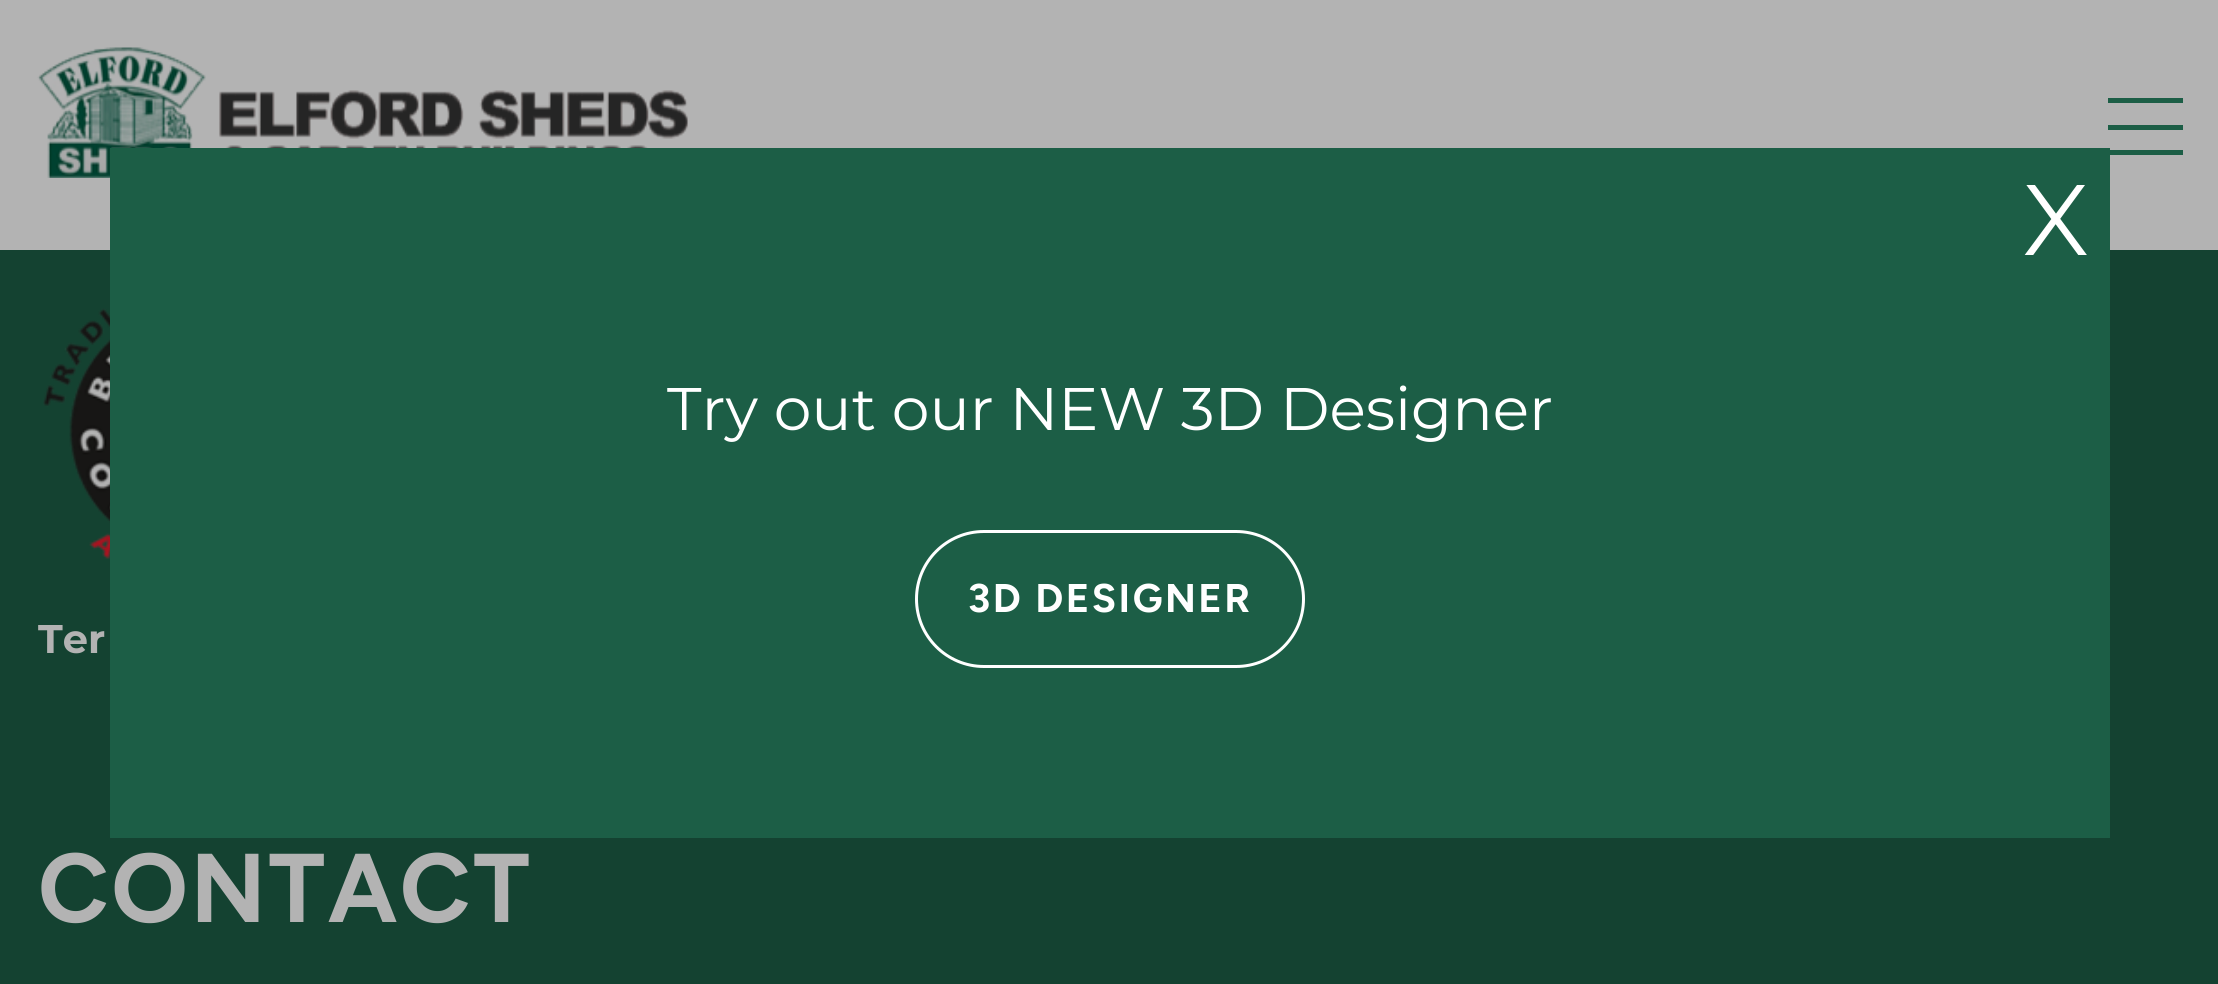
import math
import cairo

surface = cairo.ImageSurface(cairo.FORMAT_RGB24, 2218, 984)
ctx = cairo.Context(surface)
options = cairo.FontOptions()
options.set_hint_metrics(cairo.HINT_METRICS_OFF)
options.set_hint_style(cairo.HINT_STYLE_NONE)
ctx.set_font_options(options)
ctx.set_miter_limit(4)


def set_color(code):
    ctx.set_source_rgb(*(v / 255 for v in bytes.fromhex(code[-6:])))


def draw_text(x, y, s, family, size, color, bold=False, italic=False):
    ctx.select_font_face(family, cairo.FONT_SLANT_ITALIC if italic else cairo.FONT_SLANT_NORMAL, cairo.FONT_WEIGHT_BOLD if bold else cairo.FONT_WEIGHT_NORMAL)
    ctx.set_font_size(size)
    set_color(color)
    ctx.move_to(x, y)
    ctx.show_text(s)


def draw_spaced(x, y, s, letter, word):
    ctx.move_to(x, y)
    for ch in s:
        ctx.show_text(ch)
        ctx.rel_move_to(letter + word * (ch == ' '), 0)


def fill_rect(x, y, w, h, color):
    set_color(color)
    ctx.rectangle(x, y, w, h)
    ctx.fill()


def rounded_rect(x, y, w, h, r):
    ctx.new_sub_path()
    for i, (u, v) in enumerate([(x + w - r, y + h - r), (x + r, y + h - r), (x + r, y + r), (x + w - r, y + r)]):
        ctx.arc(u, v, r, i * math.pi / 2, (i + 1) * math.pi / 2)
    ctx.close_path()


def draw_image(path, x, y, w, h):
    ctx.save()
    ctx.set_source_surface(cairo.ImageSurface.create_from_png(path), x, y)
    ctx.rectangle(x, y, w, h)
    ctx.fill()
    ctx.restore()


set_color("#144231")
ctx.paint()
fill_rect(0, 0, 2218, 250, "#b3b3b3")
draw_image("assets/img1.png", 37, 47, 651, 131)
fill_rect(110, 148, 2000, 690, "#1c5e46")
draw_text(2023, 255, "X", "Montserrat", 100, "#ffffff")
draw_text(667, 430, "Try out our NEW 3D Designer", "Montserrat", 60, "#ffffff")
rounded_rect(916.5, 531.5, 387, 135, 67.5)
ctx.set_line_width(3)
ctx.stroke()
ctx.select_font_face("Figtree Light")
ctx.set_font_size(40)
draw_spaced(968, 612, "3D DESIGNER", 2.5, 0)
fill_rect(2108, 98, 75, 5, "#1c5e46")
fill_rect(2108, 125, 75, 5, "#1c5e46")
fill_rect(2108, 150, 75, 5, "#1c5e46")
draw_image("assets/img2.png", 43, 308, 67, 251)
draw_text(38, 653, "Ter", "Montserrat", 40, "#b3b3b3", bold=True)
ctx.select_font_face("Figtree Light")
ctx.set_font_size(97.5)
draw_spaced(38, 922, "CONTACT", 2.5, 0)
surface.write_to_png("output.png")
